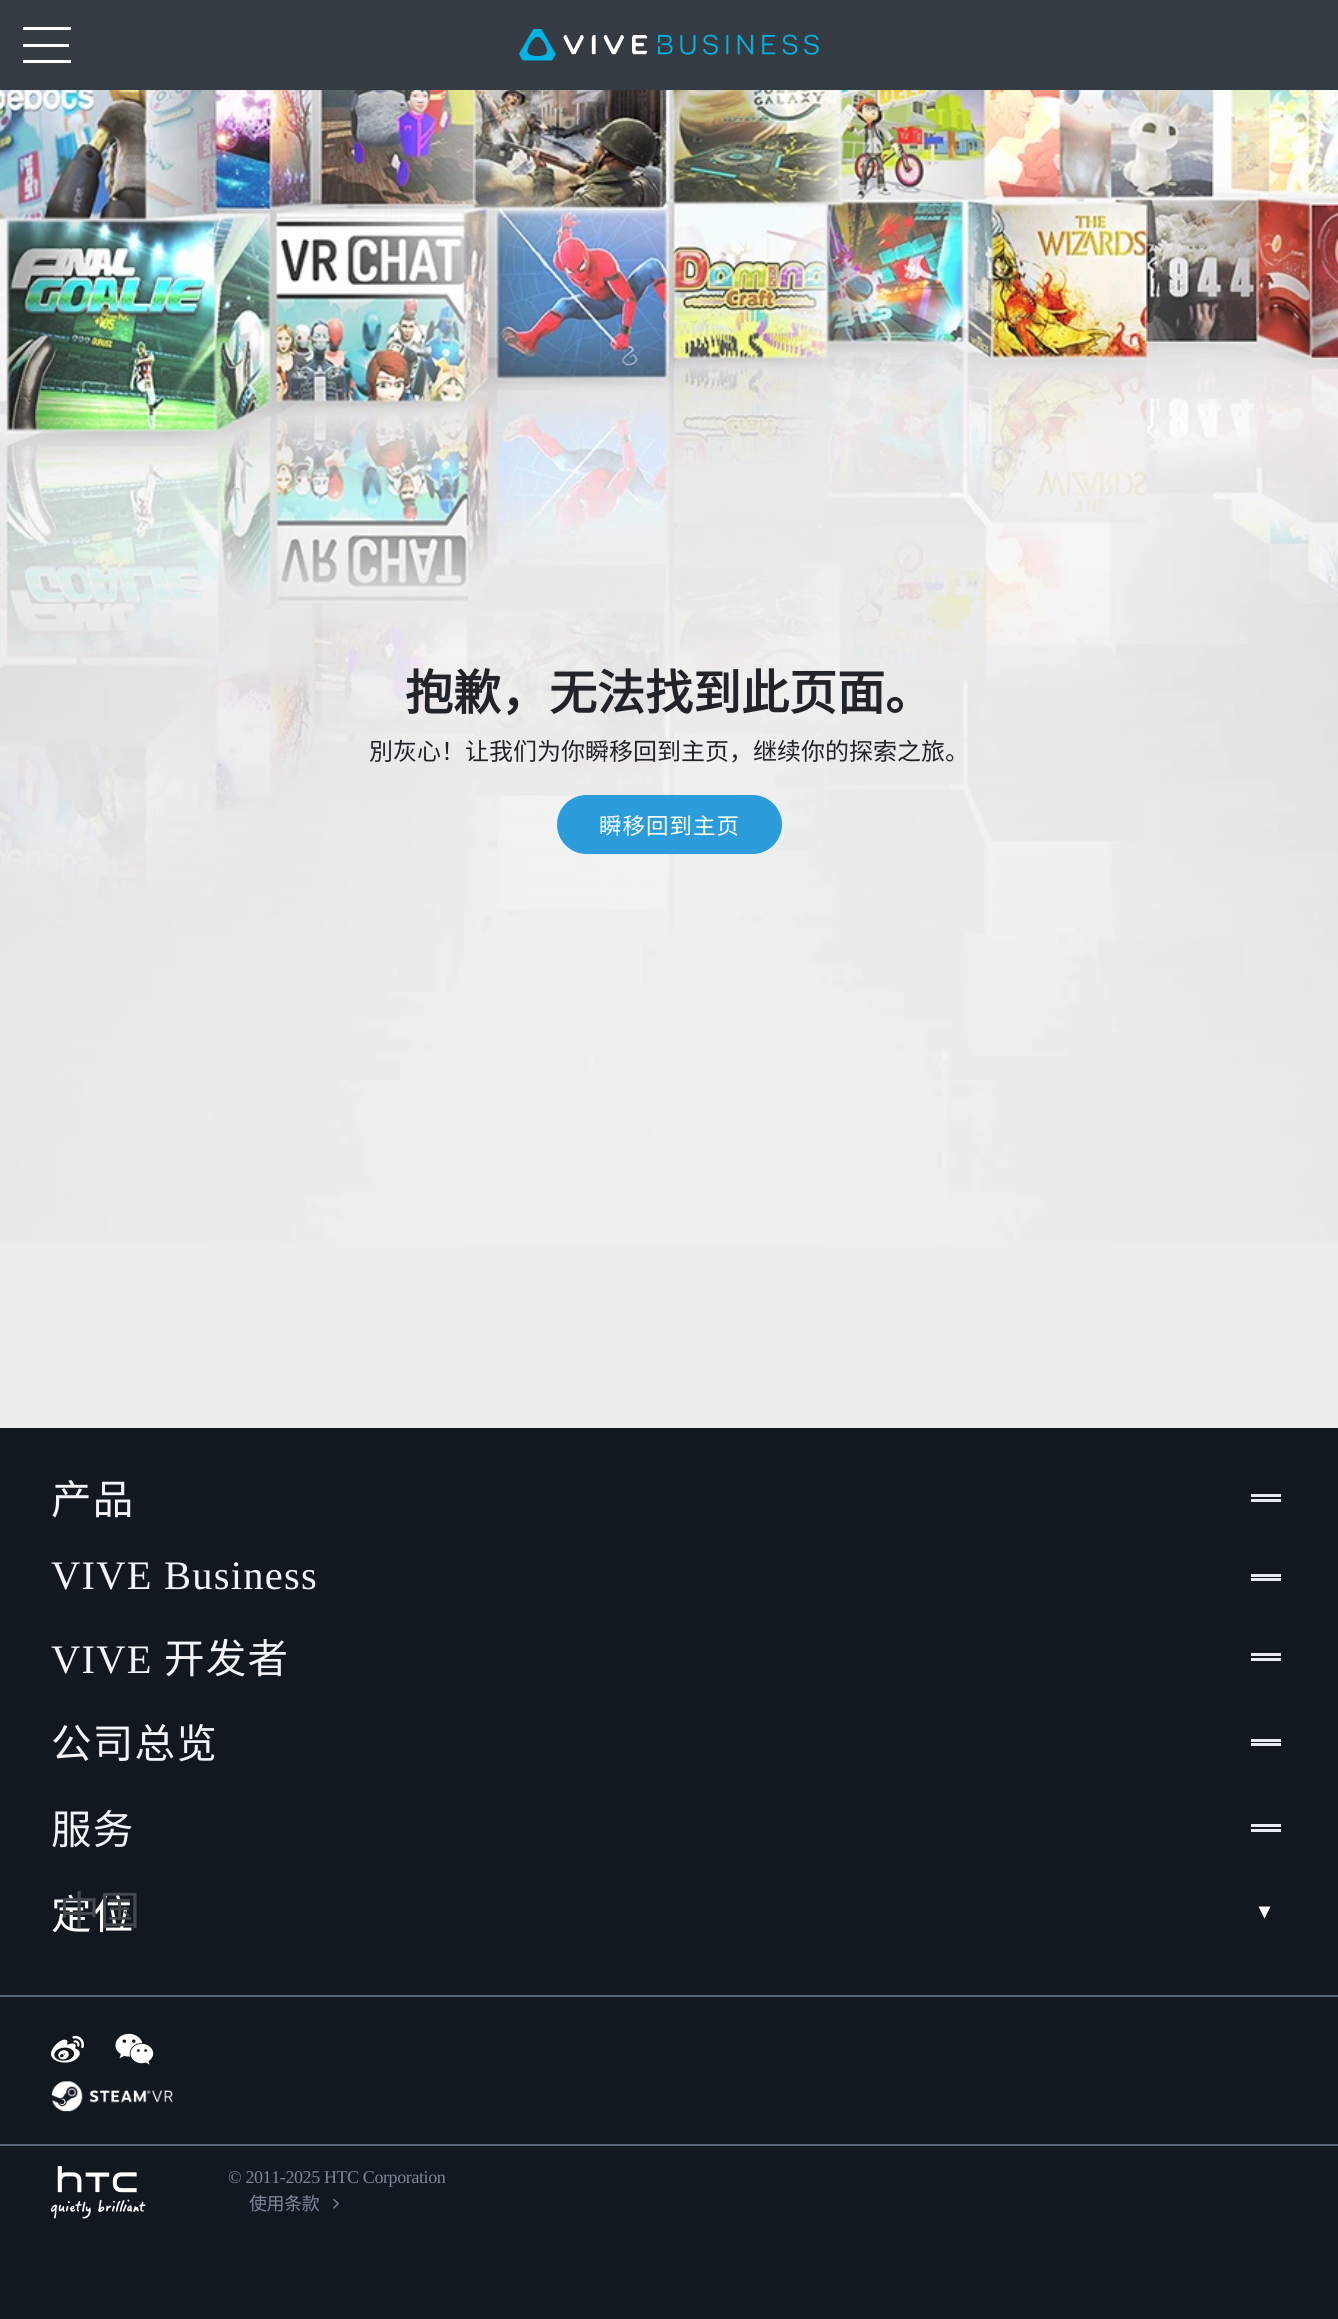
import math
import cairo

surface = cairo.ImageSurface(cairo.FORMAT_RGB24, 1338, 2319)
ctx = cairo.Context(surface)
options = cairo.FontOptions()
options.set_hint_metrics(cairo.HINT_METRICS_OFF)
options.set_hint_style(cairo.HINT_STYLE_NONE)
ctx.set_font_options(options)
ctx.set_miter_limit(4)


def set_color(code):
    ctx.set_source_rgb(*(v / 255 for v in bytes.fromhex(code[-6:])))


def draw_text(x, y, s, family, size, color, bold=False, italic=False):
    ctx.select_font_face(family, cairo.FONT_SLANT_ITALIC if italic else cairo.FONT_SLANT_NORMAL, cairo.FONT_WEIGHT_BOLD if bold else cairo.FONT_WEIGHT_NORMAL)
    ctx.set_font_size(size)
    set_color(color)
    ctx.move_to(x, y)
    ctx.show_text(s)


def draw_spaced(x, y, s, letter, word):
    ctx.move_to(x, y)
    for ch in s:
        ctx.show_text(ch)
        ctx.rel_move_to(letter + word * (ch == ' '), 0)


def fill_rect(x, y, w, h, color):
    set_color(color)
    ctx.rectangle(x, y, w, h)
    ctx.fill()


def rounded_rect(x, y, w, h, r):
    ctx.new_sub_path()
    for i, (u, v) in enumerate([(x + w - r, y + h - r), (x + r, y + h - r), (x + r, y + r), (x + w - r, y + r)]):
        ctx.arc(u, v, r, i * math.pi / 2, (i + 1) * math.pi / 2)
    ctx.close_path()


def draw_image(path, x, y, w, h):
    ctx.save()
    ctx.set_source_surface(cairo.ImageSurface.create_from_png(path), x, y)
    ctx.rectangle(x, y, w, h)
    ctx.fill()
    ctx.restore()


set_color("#111820")
ctx.paint()
fill_rect(0, 0, 1338, 90, "#353b42")
fill_rect(23, 44, 46, 3, "#ffffff")
fill_rect(23, 27, 48, 3, "#ffffff")
fill_rect(23, 60, 48, 3, "#ffffff")
draw_image("assets/img1.png", 519, 29, 300, 32)
fill_rect(0, 1244, 1338, 184, "#ededed")
draw_image("assets/img2.png", 0, 90, 1338, 1154)
draw_text(405, 710, "抱歉，无法找到此页面。", "Noto Sans CJK SC", 48, "#212529", bold=True)
draw_text(369, 760, "別灰心！让我们为你瞬移回到主页，继续你的探索之旅。", "Noto Sans CJK SC", 24, "#212529")
set_color("#2c9cdb")
rounded_rect(558, 796, 223, 57, 28.5)
ctx.fill_preserve()
ctx.stroke()
ctx.set_font_size(22.5)
set_color("#ffffff")
draw_spaced(599, 834, "瞬移回到主页", 1, 0)
ctx.set_font_size(40.5)
set_color("#f2f4f8")
draw_spaced(51, 1514, "产品", 1.25, 0)
fill_rect(1251, 1494, 30, 3, "#e7eaf0")
fill_rect(1251, 1499, 30, 3, "#e7eaf0")
ctx.select_font_face("Liberation Serif")
set_color("#f2f4f8")
draw_spaced(51, 1589, "VIVE Business", 1.25, 0)
fill_rect(1251, 1574, 30, 3, "#e7eaf0")
fill_rect(1251, 1578, 30, 3, "#e7eaf0")
set_color("#f2f4f8")
draw_spaced(51, 1673, "VIVE", 1.25, 0)
ctx.select_font_face("Noto Sans CJK SC")
draw_spaced(164, 1673, "开发者", 1.25, 0)
fill_rect(1251, 1653, 30, 3, "#e7eaf0")
fill_rect(1251, 1658, 30, 3, "#e7eaf0")
set_color("#f2f4f8")
draw_spaced(51, 1758, "公司总览", 1.25, 0)
fill_rect(1251, 1739, 30, 3, "#e7eaf0")
fill_rect(1251, 1743, 30, 3, "#e7eaf0")
set_color("#f2f4f8")
draw_spaced(51, 1844, "服务", 1.25, 0)
fill_rect(1251, 1824, 30, 3, "#e7eaf0")
fill_rect(1251, 1829, 30, 3, "#e7eaf0")
fill_rect(0, 2144, 1338, 2, "#596677")
fill_rect(0, 1995, 1338, 2, "#596677")
set_color("#ffffff")
draw_spaced(51, 1929, "定位", 1.25, 0)
draw_text(59, 1925, "中国", "Noto Sans CJK SC", 40.5, "#43484f")
set_color("#ffffff")
ctx.new_path()
ctx.move_to(1258.5, 1906.5)
ctx.line_to(1270.5, 1906.5)
ctx.line_to(1264.5, 1918.5)
ctx.close_path()
ctx.fill()
draw_image("assets/img3.png", 51, 2035, 33, 28)
draw_image("assets/img4.png", 115, 2033, 39, 32)
draw_image("assets/img5.png", 51, 2081, 122, 31)
draw_image("assets/img6.png", 51, 2166, 95, 53)
ctx.select_font_face("Liberation Serif")
ctx.set_font_size(18)
set_color("#7d8797")
draw_spaced(228, 2183, "© 2011-2025 HTC Corporation", -0.4, 0)
ctx.select_font_face("Noto Sans CJK SC")
draw_spaced(249, 2210, "使用条款", -0.4, 0)
draw_image("assets/img7.png", 333, 2198, 6, 11)
surface.write_to_png("output.png")
